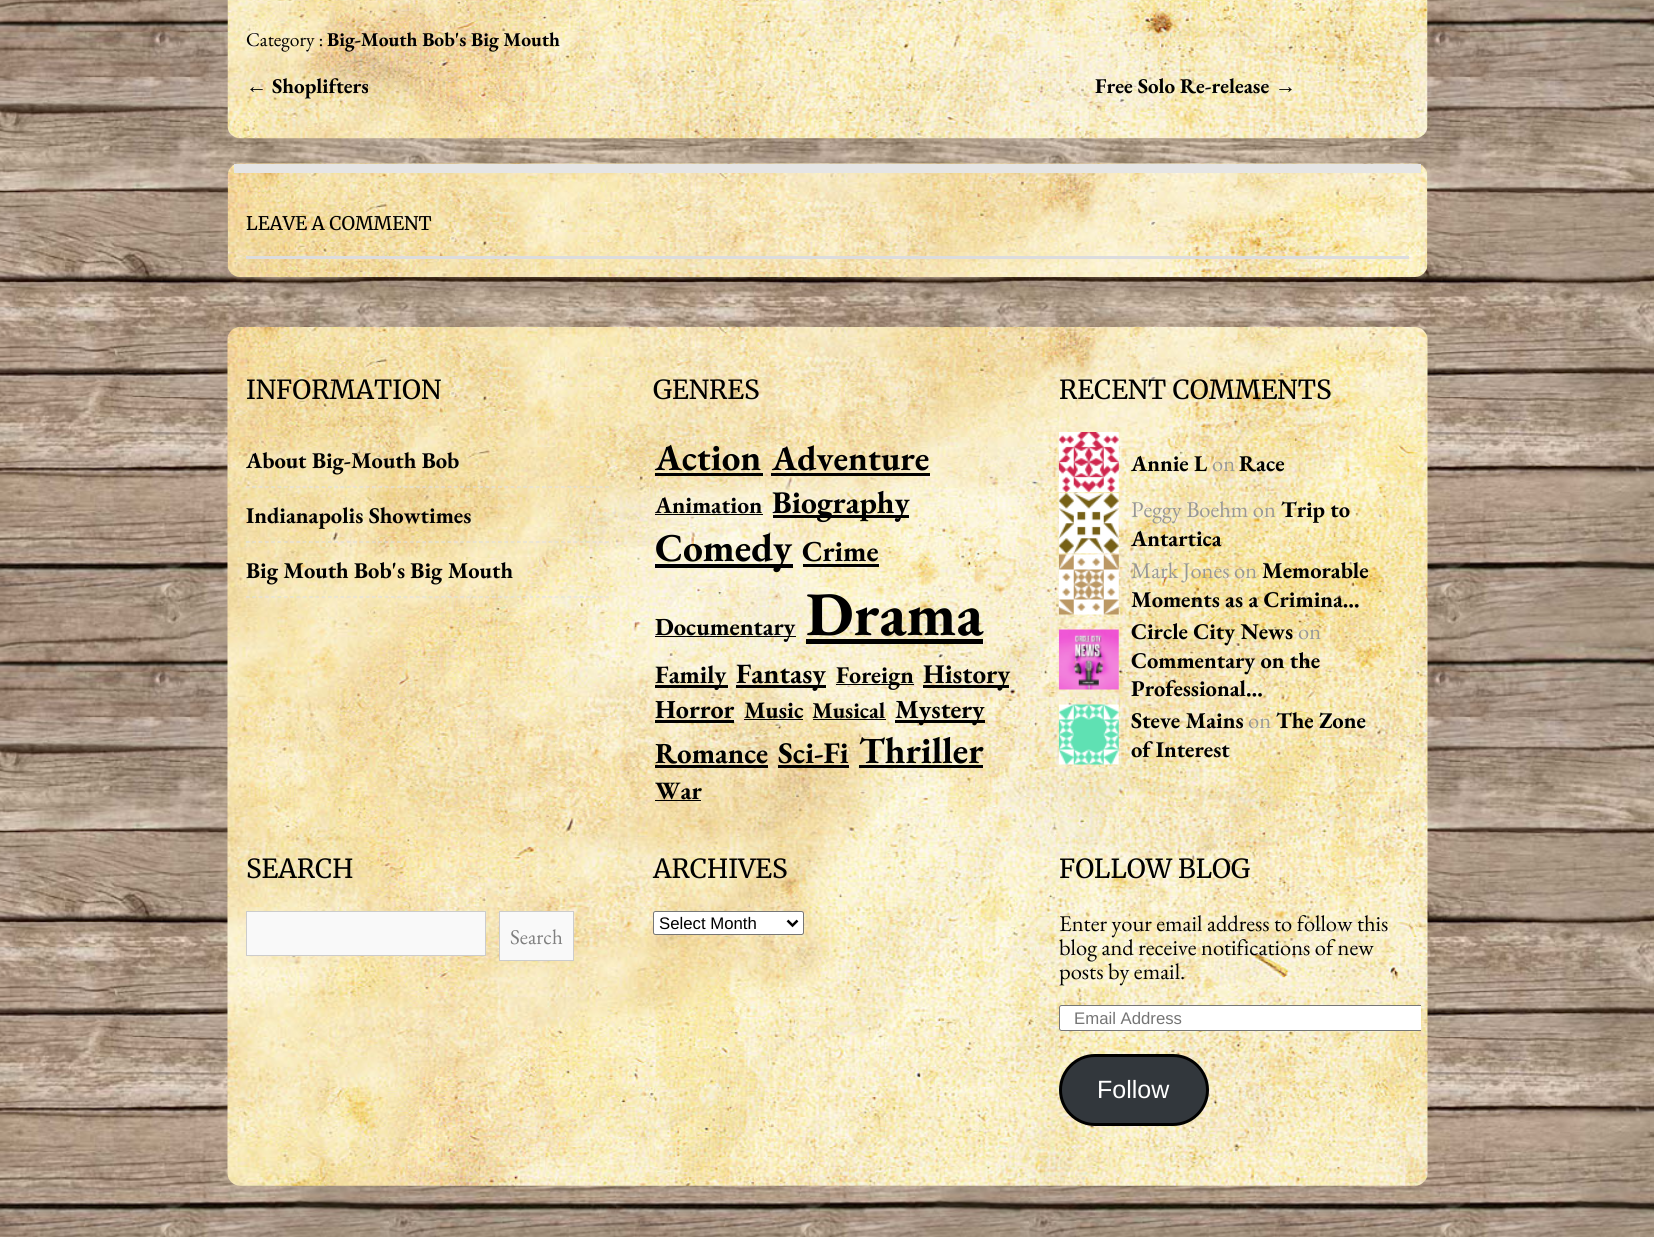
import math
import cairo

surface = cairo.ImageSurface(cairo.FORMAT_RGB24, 1654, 1237)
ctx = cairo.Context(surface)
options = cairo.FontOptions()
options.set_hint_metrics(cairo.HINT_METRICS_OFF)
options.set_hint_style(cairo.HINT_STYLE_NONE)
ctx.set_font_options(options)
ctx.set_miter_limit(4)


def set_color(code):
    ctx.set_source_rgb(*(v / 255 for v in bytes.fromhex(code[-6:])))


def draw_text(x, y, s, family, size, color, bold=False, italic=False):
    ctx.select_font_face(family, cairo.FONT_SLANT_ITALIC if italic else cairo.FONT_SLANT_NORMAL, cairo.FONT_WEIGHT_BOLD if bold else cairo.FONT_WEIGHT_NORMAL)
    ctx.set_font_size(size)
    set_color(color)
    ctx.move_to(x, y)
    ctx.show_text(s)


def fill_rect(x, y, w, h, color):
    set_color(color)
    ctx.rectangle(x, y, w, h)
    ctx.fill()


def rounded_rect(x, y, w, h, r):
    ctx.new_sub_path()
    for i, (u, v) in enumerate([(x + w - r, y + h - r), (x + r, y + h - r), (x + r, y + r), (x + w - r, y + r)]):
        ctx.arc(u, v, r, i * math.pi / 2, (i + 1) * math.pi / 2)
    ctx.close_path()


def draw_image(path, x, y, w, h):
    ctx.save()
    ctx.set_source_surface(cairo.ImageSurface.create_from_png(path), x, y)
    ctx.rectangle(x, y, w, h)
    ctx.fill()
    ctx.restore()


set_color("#ffffff")
ctx.paint()
draw_image("assets/img1.png", 0, 0, 1654, 1237)
draw_image("assets/img2.png", 227, 0, 1201, 139)
draw_text(246, 46, "Category :", "EB Garamond", 19.5, "#000000")
draw_text(327, 46, "Big-Mouth Bob's Big Mouth", "EB Garamond", 19.5, "#000000", bold=True)
draw_text(246, 93, "←", "Liberation Serif", 21, "#000000")
draw_text(272, 93, "Shoplifters", "EB Garamond", 21, "#000000", bold=True)
draw_text(1095, 93, "Free Solo Re-release", "EB Garamond", 21, "#000000", bold=True)
draw_text(1275, 93, "→", "Liberation Serif", 21, "#000000")
draw_image("assets/img3.png", 227, 163, 1201, 114)
fill_rect(234, 164, 1187, 9, "#e5e5e5")
draw_text(246, 230, "LEAVE A COMMENT", "Merriweather Light", 18.75, "#000000")
fill_rect(246, 256, 1163, 3, "#dcdcde")
draw_image("assets/img4.png", 227, 327, 1201, 859)
draw_text(246, 399, "INFORMATION", "Merriweather Light", 26.25, "#000000")
ctx.new_path()
ctx.move_to(246, 487)
ctx.line_to(609, 487)
set_color("#e1e1e1")
ctx.set_line_width(1.2)
ctx.set_dash([3.75, 2.55])
ctx.stroke()
draw_text(246, 468, "About Big-Mouth Bob", "EB Garamond", 22.5, "#000000", bold=True)
ctx.new_path()
ctx.move_to(246, 542)
ctx.line_to(609, 542)
set_color("#e1e1e1")
ctx.stroke()
draw_text(246, 523, "Indianapolis Showtimes", "EB Garamond", 22.5, "#000000", bold=True)
ctx.new_path()
ctx.move_to(246, 597)
ctx.line_to(609, 597)
set_color("#e1e1e1")
ctx.stroke()
draw_text(246, 578, "Big Mouth Bob's Big Mouth", "EB Garamond", 22.5, "#000000", bold=True)
draw_text(653, 399, "GENRES", "Merriweather Light", 26.25, "#000000")
draw_text(655, 470, "Action", "EB Garamond", 37, "#000000", bold=True)
fill_rect(655, 473, 108, 3, "#000000")
draw_text(772, 470, "Adventure", "EB Garamond", 35, "#000000", bold=True)
fill_rect(771, 473, 159, 3, "#000000")
draw_text(655, 513, "Animation", "EB Garamond", 23.5, "#000000", bold=True)
fill_rect(655, 514, 108, 1, "#000000")
fill_rect(773, 515, 136, 3, "#000000")
draw_text(772, 513, "Biography", "EB Garamond", 31.5, "#000000", bold=True)
fill_rect(655, 564, 138, 4, "#000000")
draw_text(655, 561, "Comedy", "EB Garamond", 39.5, "#000000", bold=True)
draw_text(802, 561, "Crime", "EB Garamond", 29, "#000000", bold=True)
fill_rect(803, 564, 76, 3, "#000000")
fill_rect(655, 636, 141, 1, "#000000")
draw_text(655, 635, "Documentary", "EB Garamond", 24.5, "#000000", bold=True)
draw_text(806, 635, "Drama", "EB Garamond", 62, "#000000", bold=True)
fill_rect(806, 639, 177, 5, "#000000")
fill_rect(655, 685, 73, 3, "#000000")
draw_text(655, 683, "Family", "EB Garamond", 25, "#000000", bold=True)
fill_rect(736, 685, 90, 3, "#000000")
draw_text(736, 683, "Fantasy", "EB Garamond", 28, "#000000", bold=True)
fill_rect(836, 684, 78, 1, "#000000")
draw_text(836, 683, "Foreign", "EB Garamond", 24, "#000000", bold=True)
fill_rect(923, 685, 86, 3, "#000000")
draw_text(923, 683, "History", "EB Garamond", 27, "#000000", bold=True)
draw_text(655, 718, "Horror", "EB Garamond", 26, "#000000", bold=True)
fill_rect(655, 720, 79, 3, "#000000")
draw_text(744, 718, "Music", "EB Garamond", 23.5, "#000000", bold=True)
fill_rect(744, 719, 59, 1, "#000000")
draw_text(812, 718, "Musical", "EB Garamond", 22.5, "#000000", bold=True)
fill_rect(813, 719, 73, 1, "#000000")
fill_rect(895, 720, 90, 3, "#000000")
draw_text(895, 718, "Mystery", "EB Garamond", 26, "#000000", bold=True)
draw_text(655, 763, "Romance", "EB Garamond", 29, "#000000", bold=True)
fill_rect(655, 765, 113, 3, "#000000")
draw_text(778, 763, "Sci-Fi", "EB Garamond", 30, "#000000", bold=True)
fill_rect(778, 765, 71, 3, "#000000")
draw_text(859, 763, "Thriller", "EB Garamond", 37, "#000000", bold=True)
fill_rect(859, 765, 124, 3, "#000000")
draw_text(655, 799, "War", "EB Garamond", 25, "#000000", bold=True)
fill_rect(655, 800, 46, 1, "#000000")
draw_text(1059, 399, "RECENT COMMENTS", "Merriweather Light", 26.25, "#000000")
draw_image("assets/img5.png", 1058, 432, 61, 60)
draw_text(1131, 471, "Annie L", "EB Garamond", 22.5, "#000000", bold=True)
draw_text(1212, 471, "on", "EB Garamond", 22.5, "#979797")
draw_text(1239, 471, "Race", "EB Garamond", 22.5, "#000000", bold=True)
draw_image("assets/img6.png", 1058, 493, 61, 61)
draw_text(1131, 517, "Peggy Boehm on", "EB Garamond", 22.5, "#979797")
draw_text(1281, 517, "Trip to", "EB Garamond", 22.5, "#000000", bold=True)
draw_text(1131, 546, "Antartica", "EB Garamond", 22.5, "#000000", bold=True)
draw_image("assets/img7.png", 1058, 554, 61, 61)
draw_text(1131, 578, "Mark Jones on", "EB Garamond", 22.5, "#979797")
draw_text(1262, 578, "Memorable", "EB Garamond", 22.5, "#000000", bold=True)
draw_text(1131, 607, "Moments as a Crimina…", "EB Garamond", 22.5, "#000000", bold=True)
draw_image("assets/img8.png", 1058, 629, 61, 61)
draw_text(1131, 639, "Circle City News", "EB Garamond", 22.5, "#000000", bold=True)
draw_text(1298, 639, "on", "EB Garamond", 22.5, "#979797")
draw_text(1131, 668, "Commentary on the", "EB Garamond", 22.5, "#000000", bold=True)
draw_text(1131, 696, "Professional…", "EB Garamond", 22.5, "#000000", bold=True)
draw_image("assets/img9.png", 1058, 704, 61, 61)
draw_text(1131, 728, "Steve Mains", "EB Garamond", 22.5, "#000000", bold=True)
draw_text(1248, 728, "on", "EB Garamond", 22.5, "#979797")
draw_text(1276, 728, "The Zone", "EB Garamond", 22.5, "#000000", bold=True)
draw_text(1131, 757, "of Interest", "EB Garamond", 22.5, "#000000", bold=True)
draw_text(246, 878, "SEARCH", "Merriweather Light", 26.25, "#000000")
set_color("#f9f9f9")
ctx.rectangle(246.5, 911.5, 239, 44)
ctx.fill_preserve()
set_color("#cccccc")
ctx.set_line_width(1)
ctx.set_dash([])
ctx.stroke()
set_color("#f9f9f9")
ctx.rectangle(499.5, 911.5, 74, 49)
ctx.fill_preserve()
set_color("#cccccc")
ctx.stroke()
draw_text(510, 944, "Search", "EB Garamond", 21, "#7f7f7f")
draw_text(653, 878, "ARCHIVES", "Merriweather Light", 26.25, "#000000")
set_color("#ffffff")
rounded_rect(653.5, 911.5, 150, 23, 2)
ctx.fill_preserve()
set_color("#767676")
ctx.stroke()
ctx.new_path()
ctx.move_to(787.5, 920.5)
ctx.line_to(792.5, 925.5)
ctx.line_to(797.5, 920.5)
set_color("#000000")
ctx.set_line_width(2.5)
ctx.stroke()
draw_text(659, 929, "Select Month", "Liberation Sans", 16.75, "#000000")
draw_text(1059, 878, "FOLLOW BLOG", "Merriweather Light", 26.25, "#000000")
draw_text(1059, 931, "Enter your email address to follow this", "EB Garamond", 22.5, "#000000")
draw_text(1059, 955, "blog and receive notifications of new", "EB Garamond", 22.5, "#000000")
draw_text(1059, 979, "posts by email.", "EB Garamond", 22.5, "#000000")
set_color("#ffffff")
ctx.new_path()
ctx.move_to(1061.5, 1005)
ctx.line_to(1421, 1005)
ctx.line_to(1421, 1031)
ctx.line_to(1061.5, 1031)
ctx.curve_to(1060, 1031, 1059, 1030, 1059, 1028.5)
ctx.line_to(1059, 1007.5)
ctx.curve_to(1059, 1006, 1060, 1005, 1061.5, 1005)
ctx.close_path()
ctx.fill()
ctx.save()
ctx.rectangle(1059, 825, 362, 324)
ctx.clip()
rounded_rect(1059.5, 1005.5, 374, 25, 2)
set_color("#767676")
ctx.set_line_width(1)
ctx.stroke()
ctx.restore()
draw_text(1074, 1024, "Email Address", "Liberation Sans", 16.75, "#757575")
set_color("#32373c")
rounded_rect(1060.5, 1055.5, 147, 69, 34.5)
ctx.fill_preserve()
set_color("#000000")
ctx.set_line_width(3)
ctx.stroke()
draw_text(1097, 1098, "Follow", "Liberation Sans", 25, "#ffffff")
surface.write_to_png("output.png")
